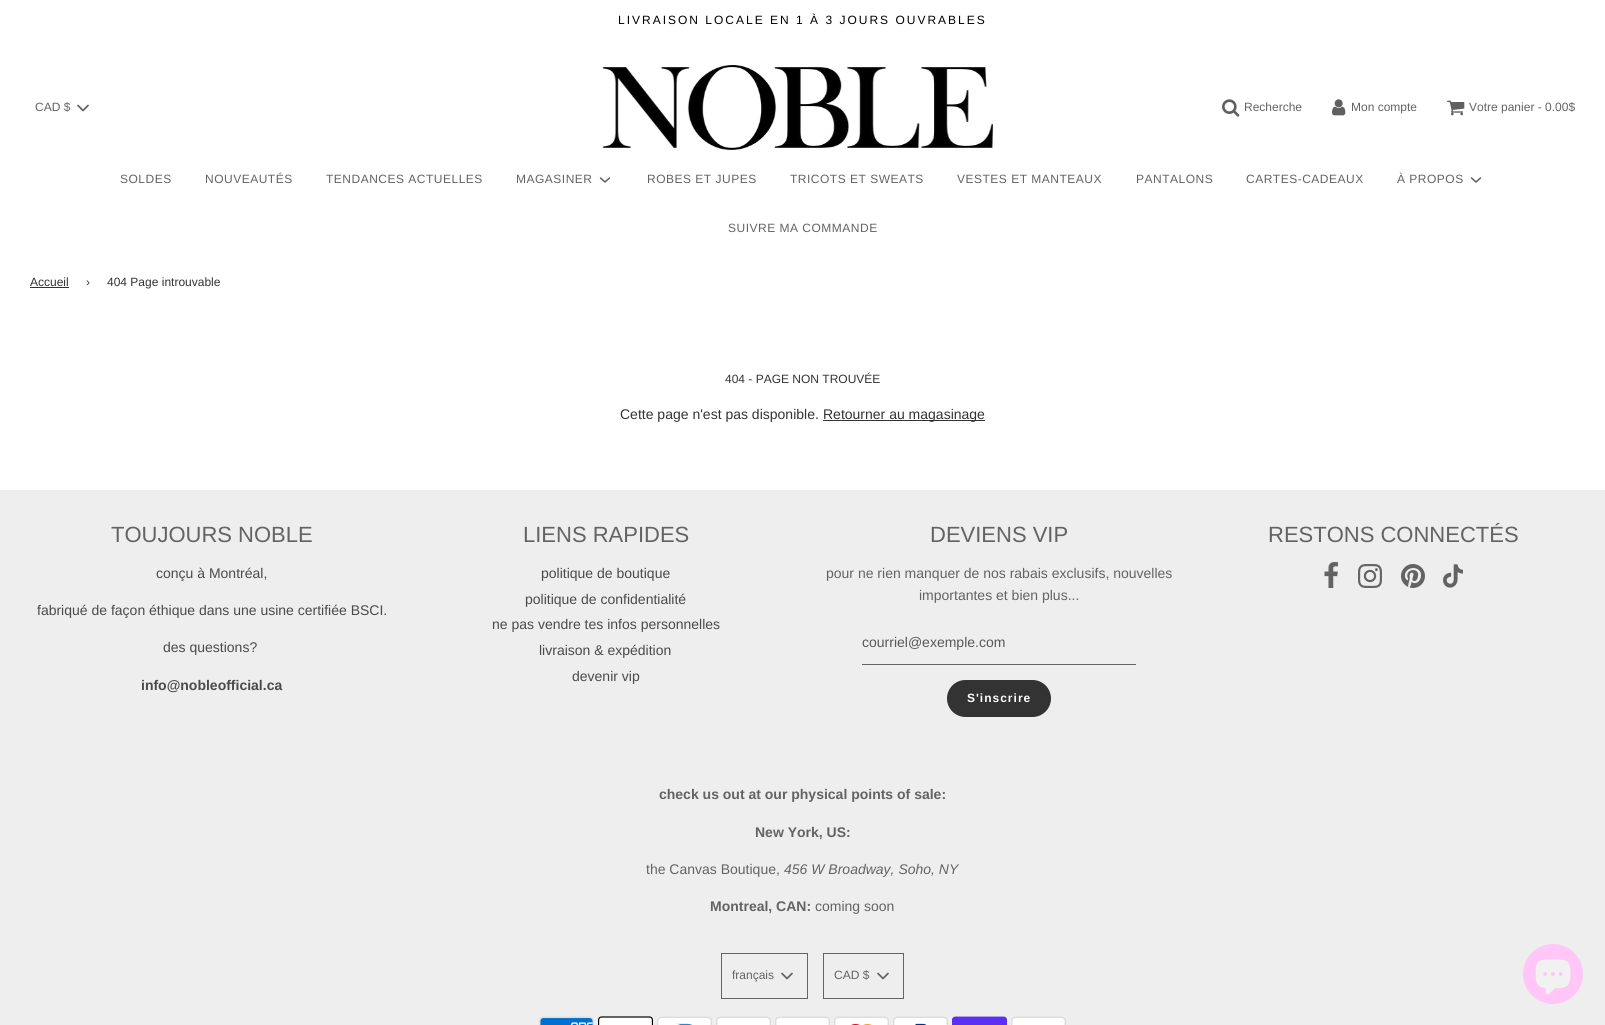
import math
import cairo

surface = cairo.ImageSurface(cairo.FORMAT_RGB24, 1605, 1025)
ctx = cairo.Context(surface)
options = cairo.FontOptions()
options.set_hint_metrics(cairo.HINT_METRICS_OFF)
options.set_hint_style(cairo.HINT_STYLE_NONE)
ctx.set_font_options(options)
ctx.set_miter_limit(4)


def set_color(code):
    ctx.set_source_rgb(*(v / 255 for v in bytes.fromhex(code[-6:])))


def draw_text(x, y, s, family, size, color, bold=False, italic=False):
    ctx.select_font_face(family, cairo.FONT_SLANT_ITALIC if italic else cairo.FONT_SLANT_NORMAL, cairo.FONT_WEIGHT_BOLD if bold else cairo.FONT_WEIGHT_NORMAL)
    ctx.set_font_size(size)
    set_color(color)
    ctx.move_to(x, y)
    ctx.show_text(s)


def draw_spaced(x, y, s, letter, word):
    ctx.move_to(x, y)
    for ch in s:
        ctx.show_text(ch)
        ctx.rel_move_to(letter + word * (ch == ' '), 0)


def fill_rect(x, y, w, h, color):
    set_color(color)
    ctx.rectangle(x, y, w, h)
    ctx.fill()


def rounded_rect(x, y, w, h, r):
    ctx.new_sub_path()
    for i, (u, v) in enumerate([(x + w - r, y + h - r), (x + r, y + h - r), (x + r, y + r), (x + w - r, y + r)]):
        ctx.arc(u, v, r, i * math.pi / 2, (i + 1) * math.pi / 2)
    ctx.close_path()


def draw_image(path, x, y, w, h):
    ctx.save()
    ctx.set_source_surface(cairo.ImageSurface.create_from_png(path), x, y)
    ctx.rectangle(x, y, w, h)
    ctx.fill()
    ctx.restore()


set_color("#ffffff")
ctx.paint()
ctx.select_font_face("Liberation Sans")
ctx.set_font_size(12)
set_color("#000000")
draw_spaced(618, 24, "LIVRAISON LOCALE EN 1 À 3 JOURS OUVRABLES", 2, 0)
draw_text(35, 111, "CAD $", "Liberation Sans", 12, "#636363")
ctx.new_path()
ctx.move_to(78, 105.5)
ctx.line_to(83, 110.5)
ctx.line_to(88, 105.5)
set_color("#606060")
ctx.set_line_width(1.7)
ctx.set_line_cap(cairo.LINE_CAP_ROUND)
ctx.set_line_join(cairo.LINE_JOIN_ROUND)
ctx.stroke()
draw_image("assets/img1.png", 602, 65, 391, 85)
draw_image("assets/img2.png", 1222, 99, 18, 18)
draw_text(1244, 111, "Recherche", "Liberation Sans", 12, "#636363")
draw_image("assets/img3.png", 1332, 99, 14, 17)
draw_text(1351, 111, "Mon compte", "Liberation Sans", 12, "#636363")
draw_image("assets/img4.png", 1447, 100, 18, 16)
draw_text(1469, 111, "Votre panier - 0.00$", "Liberation Sans", 12, "#636363")
draw_spaced(120, 183, "SOLDES", 0.5, 0)
draw_spaced(205, 183, "NOUVEAUTÉS", 0.5, 0)
draw_spaced(326, 183, "TENDANCES ACTUELLES", 0.5, 0)
draw_spaced(516, 183, "MAGASINER", 0.5, 0)
ctx.new_path()
ctx.move_to(600.5, 178)
ctx.line_to(605, 182)
ctx.line_to(609.5, 178)
set_color("#606060")
ctx.set_line_width(1.5)
ctx.stroke()
set_color("#636363")
draw_spaced(647, 183, "ROBES ET JUPES", 0.5, 0)
draw_spaced(790, 183, "TRICOTS ET SWEATS", 0.5, 0)
draw_spaced(957, 183, "VESTES ET MANTEAUX", 0.5, 0)
draw_spaced(1136, 183, "PANTALONS", 0.5, 0)
draw_spaced(1246, 183, "CARTES-CADEAUX", 0.5, 0)
draw_spaced(1397, 183, "À PROPOS", 0.5, 0)
ctx.new_path()
ctx.move_to(1471.5, 178)
ctx.line_to(1476, 182)
ctx.line_to(1480.5, 178)
set_color("#606060")
ctx.stroke()
set_color("#636363")
draw_spaced(728, 232, "SUIVRE MA COMMANDE", 0.5, 0)
draw_text(30, 286, "Accueil", "Liberation Sans", 12, "#333333")
fill_rect(30, 287, 39, 1, "#333333")
draw_text(86, 286, "›", "Liberation Sans", 12, "#333333")
draw_text(107, 286, "404 Page introuvable", "Liberation Sans", 12, "#333333")
draw_text(725, 383, "404 - PAGE NON TROUVÉE", "Liberation Sans", 12, "#333333")
draw_text(620, 419, "Cette page n'est pas disponible.", "Liberation Sans", 14, "#333333")
fill_rect(823, 420, 162, 1, "#333333")
draw_text(823, 419, "Retourner au magasinage", "Liberation Sans", 14, "#333333")
fill_rect(0, 490, 1605, 535, "#eeeeee")
draw_text(111, 542, "TOUJOURS NOBLE", "Liberation Sans", 22, "#636363")
draw_text(156, 578, "conçu à Montréal,", "Liberation Sans", 14, "#4a4a4a")
draw_text(37, 615, "fabriqué de façon éthique dans une usine certifiée BSCI.", "Liberation Sans", 14, "#4a4a4a")
draw_text(163, 652, "des questions?", "Liberation Sans", 14, "#4a4a4a")
draw_text(141, 690, "info@nobleofficial.ca", "Liberation Sans", 14, "#4a4a4a", bold=True)
draw_text(523, 542, "LIENS RAPIDES", "Liberation Sans", 22, "#636363")
draw_text(541, 578, "politique de boutique", "Liberation Sans", 14, "#4a4a4a")
draw_text(525, 604, "politique de confidentialité", "Liberation Sans", 14, "#4a4a4a")
draw_text(492, 629, "ne pas vendre tes infos personnelles", "Liberation Sans", 14, "#4a4a4a")
draw_text(539, 655, "livraison & expédition", "Liberation Sans", 14, "#4a4a4a")
draw_text(572, 681, "devenir vip", "Liberation Sans", 14, "#4a4a4a")
draw_text(930, 542, "DEVIENS VIP", "Liberation Sans", 22, "#636363")
draw_text(826, 578, "pour ne rien manquer de nos rabais exclusifs, nouvelles", "Liberation Sans", 14, "#636363")
draw_text(919, 600, "importantes et bien plus...", "Liberation Sans", 14, "#636363")
fill_rect(862, 664, 274, 1, "#636363")
draw_text(862, 647, "courriel@exemple.com", "Liberation Sans", 14, "#585858")
set_color("#333333")
rounded_rect(947, 680, 104, 37, 18.5)
ctx.fill()
ctx.select_font_face("Liberation Sans", cairo.FONT_SLANT_NORMAL, cairo.FONT_WEIGHT_BOLD)
ctx.set_font_size(12)
set_color("#ffffff")
draw_spaced(967, 702, "S'inscrire", 1, 0)
draw_text(1268, 542, "RESTONS CONNECTÉS", "Liberation Sans", 22, "#636363")
draw_image("assets/img5.png", 1324, 562, 14, 26)
draw_image("assets/img6.png", 1358, 564, 24, 24)
draw_image("assets/img7.png", 1401, 564, 24, 24)
draw_image("assets/img8.png", 1443, 564, 20, 24)
draw_text(659, 799, "check us out at our physical points of sale:", "Liberation Sans", 14, "#636363", bold=True)
draw_text(755, 837, "New York, US:", "Liberation Sans", 14, "#636363", bold=True)
draw_text(646, 874, "the Canvas Boutique,", "Liberation Sans", 14, "#636363")
draw_text(784, 874, "456 W Broadway, Soho, NY", "Liberation Sans", 14, "#636363", italic=True)
draw_text(710, 911, "Montreal, CAN:", "Liberation Sans", 14, "#636363", bold=True)
draw_text(815, 911, "coming soon", "Liberation Sans", 14, "#636363")
ctx.rectangle(721.5, 953.5, 86, 45)
ctx.set_line_width(1)
ctx.set_line_cap(cairo.LINE_CAP_BUTT)
ctx.set_line_join(cairo.LINE_JOIN_MITER)
ctx.stroke()
draw_text(732, 979, "français", "Liberation Sans", 12, "#636363")
ctx.new_path()
ctx.move_to(782, 973.5)
ctx.line_to(787, 978.5)
ctx.line_to(792, 973.5)
ctx.set_line_width(1.7)
ctx.set_line_cap(cairo.LINE_CAP_ROUND)
ctx.set_line_join(cairo.LINE_JOIN_ROUND)
ctx.stroke()
ctx.rectangle(823.5, 953.5, 80, 45)
ctx.set_line_width(1)
ctx.set_line_cap(cairo.LINE_CAP_BUTT)
ctx.set_line_join(cairo.LINE_JOIN_MITER)
ctx.stroke()
draw_text(834, 979, "CAD $", "Liberation Sans", 12, "#636363")
ctx.new_path()
ctx.move_to(878, 973.5)
ctx.line_to(883, 978.5)
ctx.line_to(888, 973.5)
ctx.set_line_width(1.7)
ctx.set_line_cap(cairo.LINE_CAP_ROUND)
ctx.set_line_join(cairo.LINE_JOIN_ROUND)
ctx.stroke()
draw_image("assets/img9.png", 539, 1016, 55, 9)
draw_image("assets/img10.png", 598, 1016, 55, 9)
draw_image("assets/img11.png", 657, 1016, 55, 9)
draw_image("assets/img12.png", 716, 1016, 55, 9)
draw_image("assets/img12.png", 775, 1016, 55, 9)
draw_image("assets/img13.png", 834, 1016, 55, 9)
draw_image("assets/img14.png", 893, 1016, 55, 9)
draw_image("assets/img15.png", 952, 1016, 55, 9)
draw_image("assets/img12.png", 1011, 1016, 55, 9)
set_color("#ffc6f7")
ctx.arc(1553, 974, 30, 0, 2 * math.pi)
ctx.fill()
draw_image("assets/img16.png", 1535, 959, 36, 36)
surface.write_to_png("output.png")
